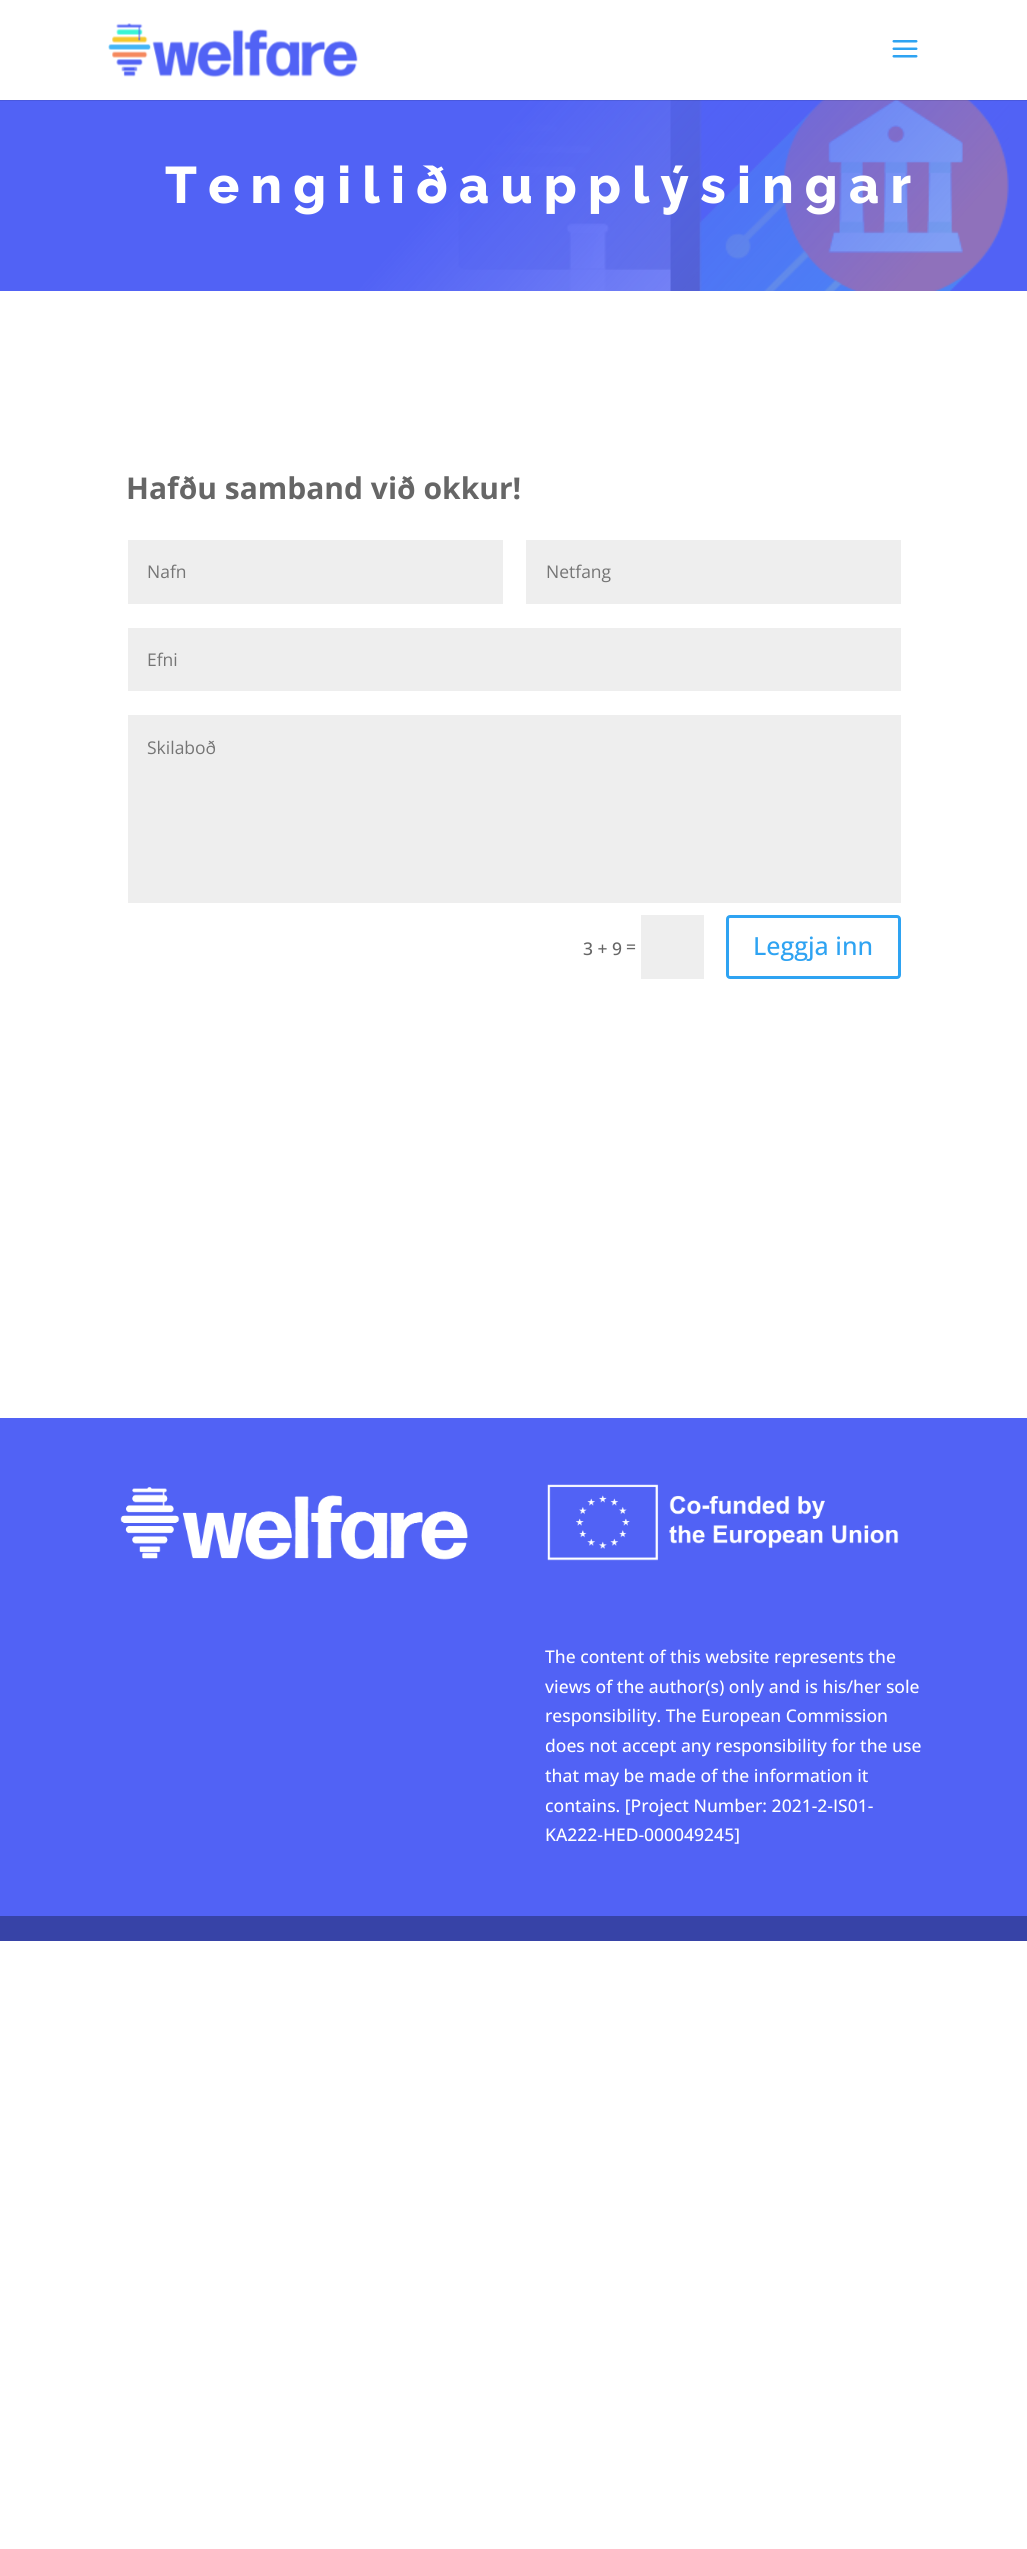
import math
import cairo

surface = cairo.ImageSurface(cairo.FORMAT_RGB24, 1027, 2549)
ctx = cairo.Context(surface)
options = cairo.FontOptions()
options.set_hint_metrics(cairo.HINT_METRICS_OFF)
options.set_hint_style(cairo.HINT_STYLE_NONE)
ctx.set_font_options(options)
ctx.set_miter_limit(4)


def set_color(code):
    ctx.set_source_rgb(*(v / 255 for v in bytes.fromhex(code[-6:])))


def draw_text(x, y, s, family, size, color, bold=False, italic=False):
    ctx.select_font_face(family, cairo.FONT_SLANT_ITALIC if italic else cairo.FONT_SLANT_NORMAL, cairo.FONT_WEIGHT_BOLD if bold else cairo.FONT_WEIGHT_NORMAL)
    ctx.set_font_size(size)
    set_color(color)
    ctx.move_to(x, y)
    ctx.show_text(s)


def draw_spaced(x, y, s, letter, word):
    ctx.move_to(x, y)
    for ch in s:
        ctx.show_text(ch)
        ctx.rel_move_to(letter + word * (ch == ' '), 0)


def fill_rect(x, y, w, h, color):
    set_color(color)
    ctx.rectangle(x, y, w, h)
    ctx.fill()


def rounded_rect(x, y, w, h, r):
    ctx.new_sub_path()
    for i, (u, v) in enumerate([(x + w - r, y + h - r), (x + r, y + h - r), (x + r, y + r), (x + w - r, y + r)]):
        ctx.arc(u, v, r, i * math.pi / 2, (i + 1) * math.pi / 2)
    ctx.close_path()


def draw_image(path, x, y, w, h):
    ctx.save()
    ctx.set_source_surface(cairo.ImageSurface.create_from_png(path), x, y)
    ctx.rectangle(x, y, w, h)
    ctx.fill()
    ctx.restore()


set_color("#ffffff")
ctx.paint()
draw_image("assets/img3.png", 364, 100, 663, 191)
gradient = cairo.LinearGradient(182, -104, 845, 494)
gradient.add_color_stop_rgba(0.44, 0.318, 0.384, 0.961, 1)
gradient.add_color_stop_rgba(0.89, 0.318, 0.384, 0.961, 0.62)
ctx.set_source(gradient)
ctx.rectangle(0, 100, 1009, 191)
ctx.fill()
ctx.set_source_rgba(0, 0, 0, 0.1)
ctx.new_path()
ctx.move_to(0, 100)
ctx.line_to(0, 101)
ctx.line_to(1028, 101)
ctx.line_to(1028, 1)
ctx.line_to(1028, 100)
ctx.close_path()
ctx.fill()
draw_image("assets/img1.png", 108, 23, 250, 55)
draw_image("assets/img2.png", 892, 40, 26, 18)
ctx.select_font_face("Raleway ExtraBold")
ctx.set_font_size(51.4)
set_color("#ffffff")
draw_spaced(165, 203, "Tengiliðaupplýsingar", 11.25, 0)
draw_text(126, 499, "Hafðu samband við okkur!", "Open Sans", 30, "#666666", bold=True)
fill_rect(128, 540, 375, 64, "#eeeeee")
draw_text(147, 578, "Nafn", "Open Sans", 17.5, "#757575")
fill_rect(526, 540, 375, 64, "#eeeeee")
draw_text(546, 578, "Netfang", "Open Sans", 17.5, "#757575")
fill_rect(128, 628, 773, 63, "#eeeeee")
draw_text(147, 666, "Efni", "Open Sans", 17.5, "#757575")
fill_rect(128, 715, 773, 188, "#eeeeee")
draw_text(147, 754, "Skilaboð", "Open Sans", 17.5, "#757575")
draw_text(583, 955, "3 + 9", "Open Sans Medium", 17.5, "#666666")
draw_text(626, 953, "=", "Open Sans Medium", 17.5, "#666666")
fill_rect(641, 915, 63, 64, "#eeeeee")
rounded_rect(727.5, 916.5, 172, 61, 2.5)
set_color("#2ea3f2")
ctx.set_line_width(3)
ctx.stroke()
draw_text(753, 955, "Leggja inn", "Open Sans Medium", 25, "#2ea3f2")
fill_rect(0, 1418, 1027, 498, "#5162f5")
draw_image("assets/img4.png", 120, 1487, 348, 73)
draw_image("assets/img5.png", 547, 1484, 352, 77)
draw_text(545, 1663, "The content of this website represents the", "Open Sans Medium", 17.5, "#ffffff")
draw_text(545, 1693, "views of the author(s) only and is his/her sole", "Open Sans Medium", 17.5, "#ffffff")
draw_text(545, 1722, "responsibility. The European Commission", "Open Sans Medium", 17.5, "#ffffff")
draw_text(545, 1752, "does not accept any responsibility for the use", "Open Sans Medium", 17.5, "#ffffff")
draw_text(545, 1782, "that may be made of the information it", "Open Sans Medium", 17.5, "#ffffff")
draw_text(545, 1812, "contains. [Project Number: 2021-2-IS01-", "Open Sans Medium", 17.5, "#ffffff")
draw_text(545, 1841, "KA222-HED-000049245]", "Open Sans Medium", 17.5, "#ffffff")
fill_rect(0, 1916, 1027, 25, "#3743a7")
surface.write_to_png("output.png")
